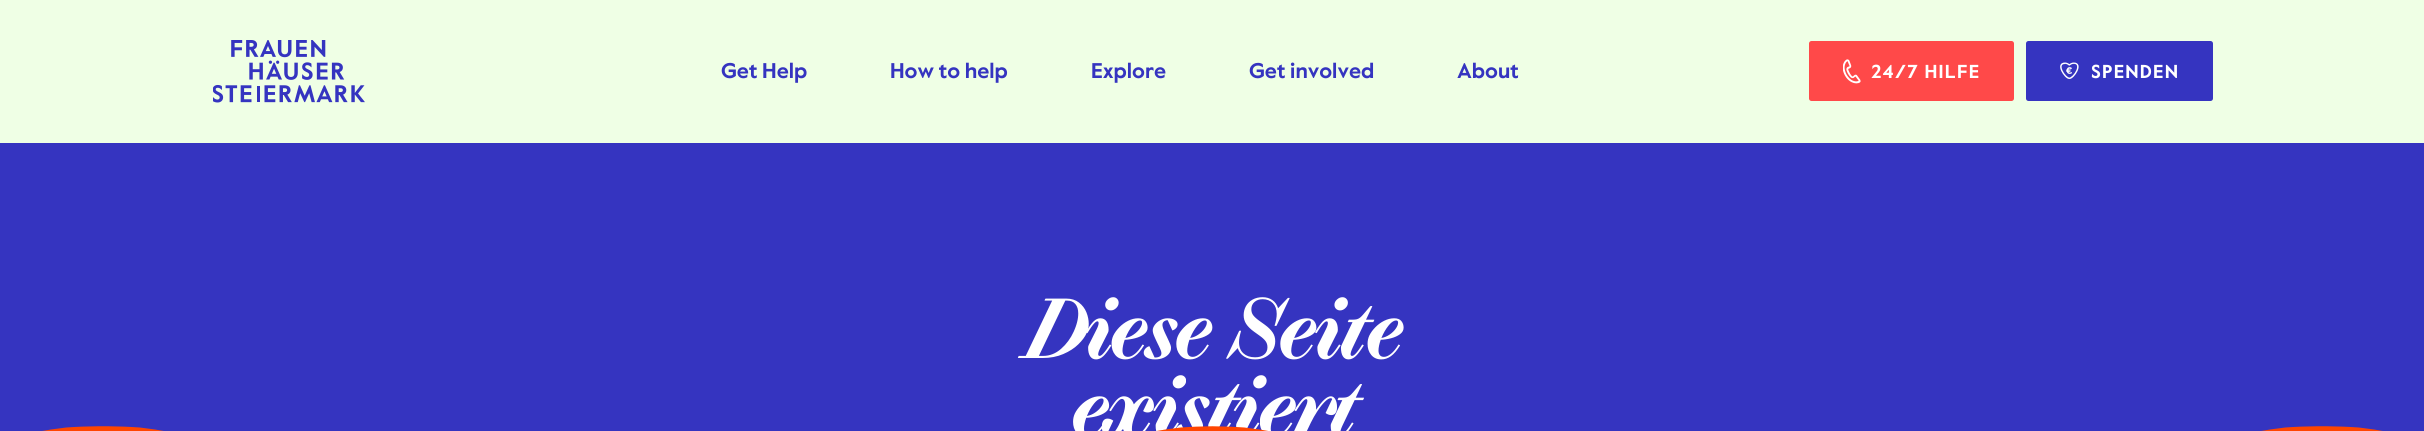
import math
import cairo

surface = cairo.ImageSurface(cairo.FORMAT_RGB24, 2424, 431)
ctx = cairo.Context(surface)
options = cairo.FontOptions()
options.set_hint_metrics(cairo.HINT_METRICS_OFF)
options.set_hint_style(cairo.HINT_STYLE_NONE)
ctx.set_font_options(options)
ctx.set_miter_limit(4)


def set_color(code):
    ctx.set_source_rgb(*(v / 255 for v in bytes.fromhex(code[-6:])))


def draw_text(x, y, s, family, size, color, bold=False, italic=False):
    ctx.select_font_face(family, cairo.FONT_SLANT_ITALIC if italic else cairo.FONT_SLANT_NORMAL, cairo.FONT_WEIGHT_BOLD if bold else cairo.FONT_WEIGHT_NORMAL)
    ctx.set_font_size(size)
    set_color(color)
    ctx.move_to(x, y)
    ctx.show_text(s)


def draw_spaced(x, y, s, letter, word):
    ctx.move_to(x, y)
    for ch in s:
        ctx.show_text(ch)
        ctx.rel_move_to(letter + word * (ch == ' '), 0)


def fill_rect(x, y, w, h, color):
    set_color(color)
    ctx.rectangle(x, y, w, h)
    ctx.fill()


def rounded_rect(x, y, w, h, r):
    ctx.new_sub_path()
    for i, (u, v) in enumerate([(x + w - r, y + h - r), (x + r, y + h - r), (x + r, y + r), (x + w - r, y + r)]):
        ctx.arc(u, v, r, i * math.pi / 2, (i + 1) * math.pi / 2)
    ctx.close_path()


def draw_image(path, x, y, w, h):
    ctx.save()
    ctx.set_source_surface(cairo.ImageSurface.create_from_png(path), x, y)
    ctx.rectangle(x, y, w, h)
    ctx.fill()
    ctx.restore()


set_color("#3534c0")
ctx.paint()
fill_rect(0, 0, 2424, 143, "#efffe5")
draw_image("assets/img1.png", 213, 40, 152, 63)
draw_text(721, 78, "Get Help", "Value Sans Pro", 21.25, "#3534c0", bold=True)
draw_text(890, 78, "How to help", "Value Sans Pro", 21.25, "#3534c0", bold=True)
draw_text(1091, 78, "Explore", "Value Sans Pro", 21.25, "#3534c0", bold=True)
draw_text(1249, 78, "Get involved", "Value Sans Pro", 21.25, "#3534c0", bold=True)
draw_text(1457, 78, "About", "Value Sans Pro", 21.25, "#3534c0", bold=True)
set_color("#ff4949")
rounded_rect(1810.5, 42.5, 202, 57, 1)
ctx.fill_preserve()
ctx.set_line_width(3)
ctx.stroke()
draw_image("assets/img2.png", 1843, 59, 18, 25)
ctx.set_font_size(18.75)
set_color("#ffffff")
draw_spaced(1871, 78, "24/7 HILFE", 1.25, 0)
set_color("#3534c0")
rounded_rect(2027.5, 42.5, 184, 57, 1)
ctx.fill_preserve()
ctx.stroke()
draw_image("assets/img3.png", 2060, 62, 19, 17)
set_color("#ffffff")
draw_spaced(2091, 78, "SPENDEN", 1.25, 0)
ctx.select_font_face("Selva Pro", cairo.FONT_SLANT_ITALIC, cairo.FONT_WEIGHT_BOLD)
ctx.set_font_size(87.5)
draw_spaced(1024, 358, "Diese Seite", -4.4, 0)
draw_spaced(1070, 436, "existiert", -4.4, 0)
draw_image("assets/img4.png", 42, 426, 2341, 5)
surface.write_to_png("output.png")
